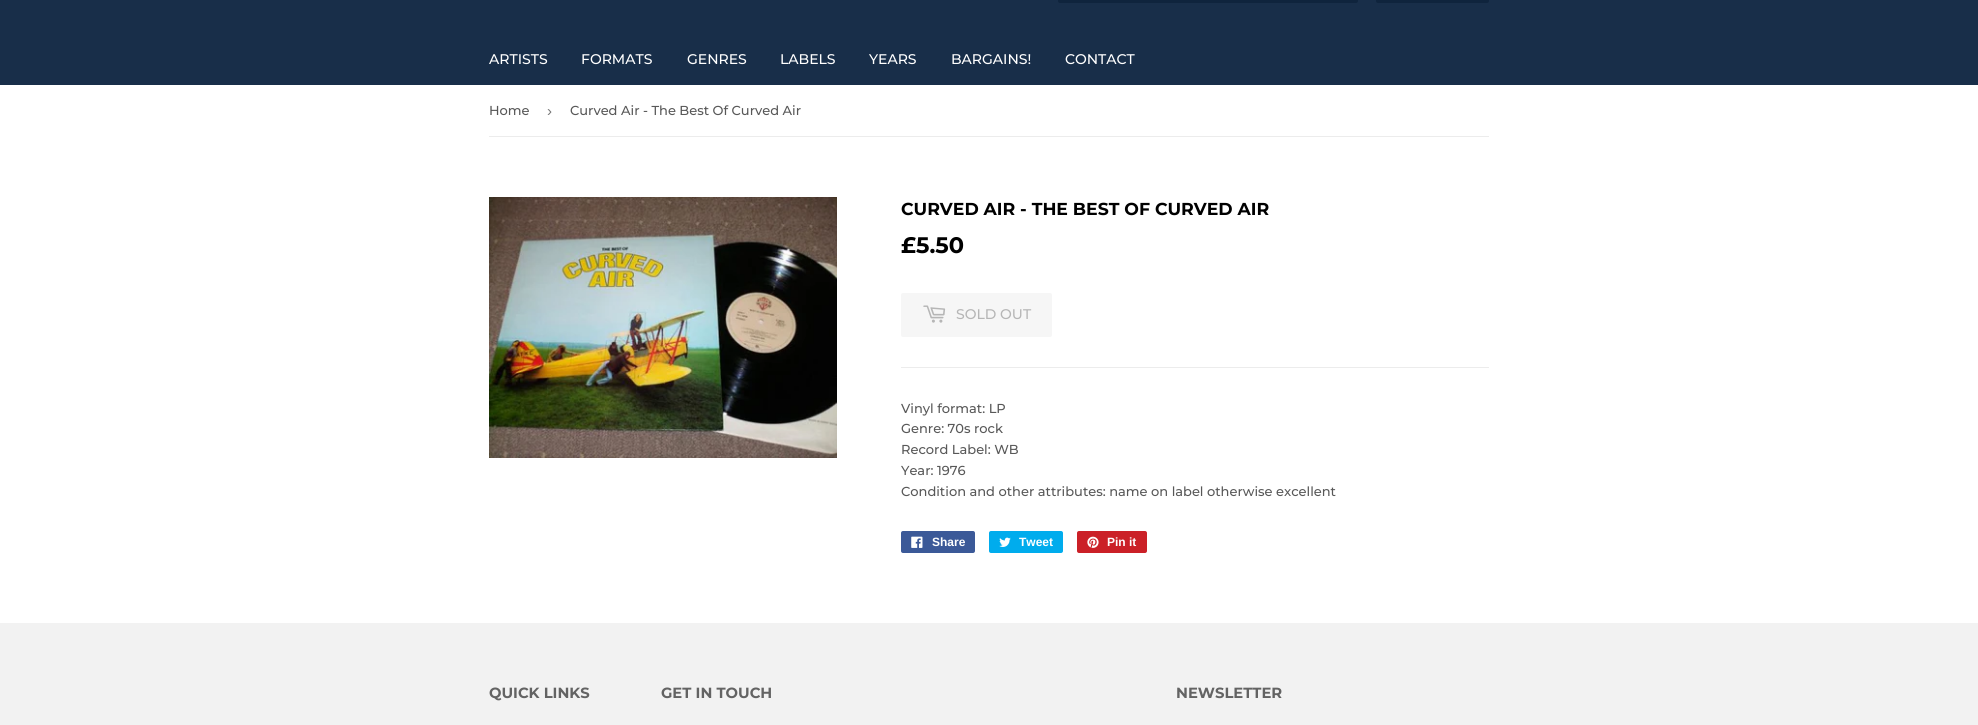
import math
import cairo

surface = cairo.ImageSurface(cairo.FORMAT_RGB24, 1978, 725)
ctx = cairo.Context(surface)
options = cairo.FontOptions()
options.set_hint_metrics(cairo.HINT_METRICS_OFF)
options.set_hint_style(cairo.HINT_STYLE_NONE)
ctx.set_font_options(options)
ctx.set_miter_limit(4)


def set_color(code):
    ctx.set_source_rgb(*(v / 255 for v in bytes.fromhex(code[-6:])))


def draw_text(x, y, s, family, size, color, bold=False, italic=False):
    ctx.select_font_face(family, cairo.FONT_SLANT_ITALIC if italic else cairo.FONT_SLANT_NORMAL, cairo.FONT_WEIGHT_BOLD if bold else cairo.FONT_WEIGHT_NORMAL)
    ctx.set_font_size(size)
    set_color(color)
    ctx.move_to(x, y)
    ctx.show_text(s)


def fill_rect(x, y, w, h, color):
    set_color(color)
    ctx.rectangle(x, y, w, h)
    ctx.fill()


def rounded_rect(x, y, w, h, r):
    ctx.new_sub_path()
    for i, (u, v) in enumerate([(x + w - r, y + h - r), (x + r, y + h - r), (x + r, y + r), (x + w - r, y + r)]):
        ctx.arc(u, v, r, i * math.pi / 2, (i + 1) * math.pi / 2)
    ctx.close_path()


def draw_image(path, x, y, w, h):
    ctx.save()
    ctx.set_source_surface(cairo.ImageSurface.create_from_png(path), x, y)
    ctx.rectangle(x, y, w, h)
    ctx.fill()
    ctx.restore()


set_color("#ffffff")
ctx.paint()
fill_rect(0, 0, 1978, 85, "#182e49")
set_color("#0f243d")
rounded_rect(1058, -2, 300, 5, 2)
ctx.fill()
rounded_rect(1376, -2, 113, 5, 2)
ctx.fill()
draw_text(489, 64, "ARTISTS", "Montserrat Medium", 14, "#ffffff")
draw_text(581, 64, "FORMATS", "Montserrat Medium", 14, "#ffffff")
draw_text(687, 64, "GENRES", "Montserrat Medium", 14, "#ffffff")
draw_text(780, 64, "LABELS", "Montserrat Medium", 14, "#ffffff")
draw_text(869, 64, "YEARS", "Montserrat Medium", 14, "#ffffff")
draw_text(951, 64, "BARGAINS!", "Montserrat Medium", 14, "#ffffff")
draw_text(1065, 64, "CONTACT", "Montserrat Medium", 14, "#ffffff")
fill_rect(489, 136, 1000, 1, "#ececec")
draw_text(489, 115, "Home", "Montserrat Medium", 13, "#585858")
draw_text(547, 116, "›", "Liberation Sans", 15, "#767676")
draw_text(570, 115, "Curved Air - The Best Of Curved Air", "Montserrat Medium", 13, "#585858")
draw_image("assets/img1.png", 489, 197, 348, 261)
draw_text(901, 215, "CURVED AIR - THE BEST OF CURVED AIR", "Montserrat", 17.3, "#000000", bold=True)
draw_text(901, 253, "£5.50", "Montserrat", 22.5, "#000000", bold=True)
set_color("#f6f6f6")
rounded_rect(901, 293, 151, 44, 2)
ctx.fill()
draw_image("assets/img2.png", 923, 305, 23, 18)
draw_text(956, 319, "SOLD OUT", "Montserrat Medium", 14, "#b6b6b6")
fill_rect(901, 367, 588, 1, "#ececec")
draw_text(901, 413, "Vinyl format: LP", "Montserrat Medium", 13, "#585858")
draw_text(901, 433, "Genre: 70s rock", "Montserrat Medium", 13, "#585858")
draw_text(901, 454, "Record Label: WB", "Montserrat Medium", 13, "#585858")
draw_text(901, 475, "Year: 1976", "Montserrat Medium", 13, "#585858")
draw_text(901, 496, "Condition and other attributes: name on label otherwise excellent", "Montserrat Medium", 13, "#585858")
set_color("#3b5998")
rounded_rect(901, 531, 74, 22, 2)
ctx.fill()
draw_image("assets/img3.png", 911, 536, 12, 12)
draw_text(932, 546, "Share", "Liberation Sans", 12, "#ffffff", bold=True)
set_color("#00aced")
rounded_rect(989, 531, 74, 22, 2)
ctx.fill()
draw_image("assets/img4.png", 999, 537, 12, 10)
draw_text(1019, 546, "Tweet", "Liberation Sans", 12, "#ffffff", bold=True)
set_color("#cb2027")
rounded_rect(1077, 531, 70, 22, 2)
ctx.fill()
draw_image("assets/img5.png", 1087, 536, 12, 12)
draw_text(1107, 546, "Pin it", "Liberation Sans", 12, "#ffffff", bold=True)
fill_rect(0, 623, 1978, 102, "#f2f2f2")
draw_text(489, 698, "QUICK LINKS", "Montserrat", 14.75, "#636363", bold=True)
draw_text(661, 698, "GET IN TOUCH", "Montserrat", 14.75, "#636363", bold=True)
draw_text(1176, 698, "NEWSLETTER", "Montserrat", 14.75, "#636363", bold=True)
surface.write_to_png("output.png")
